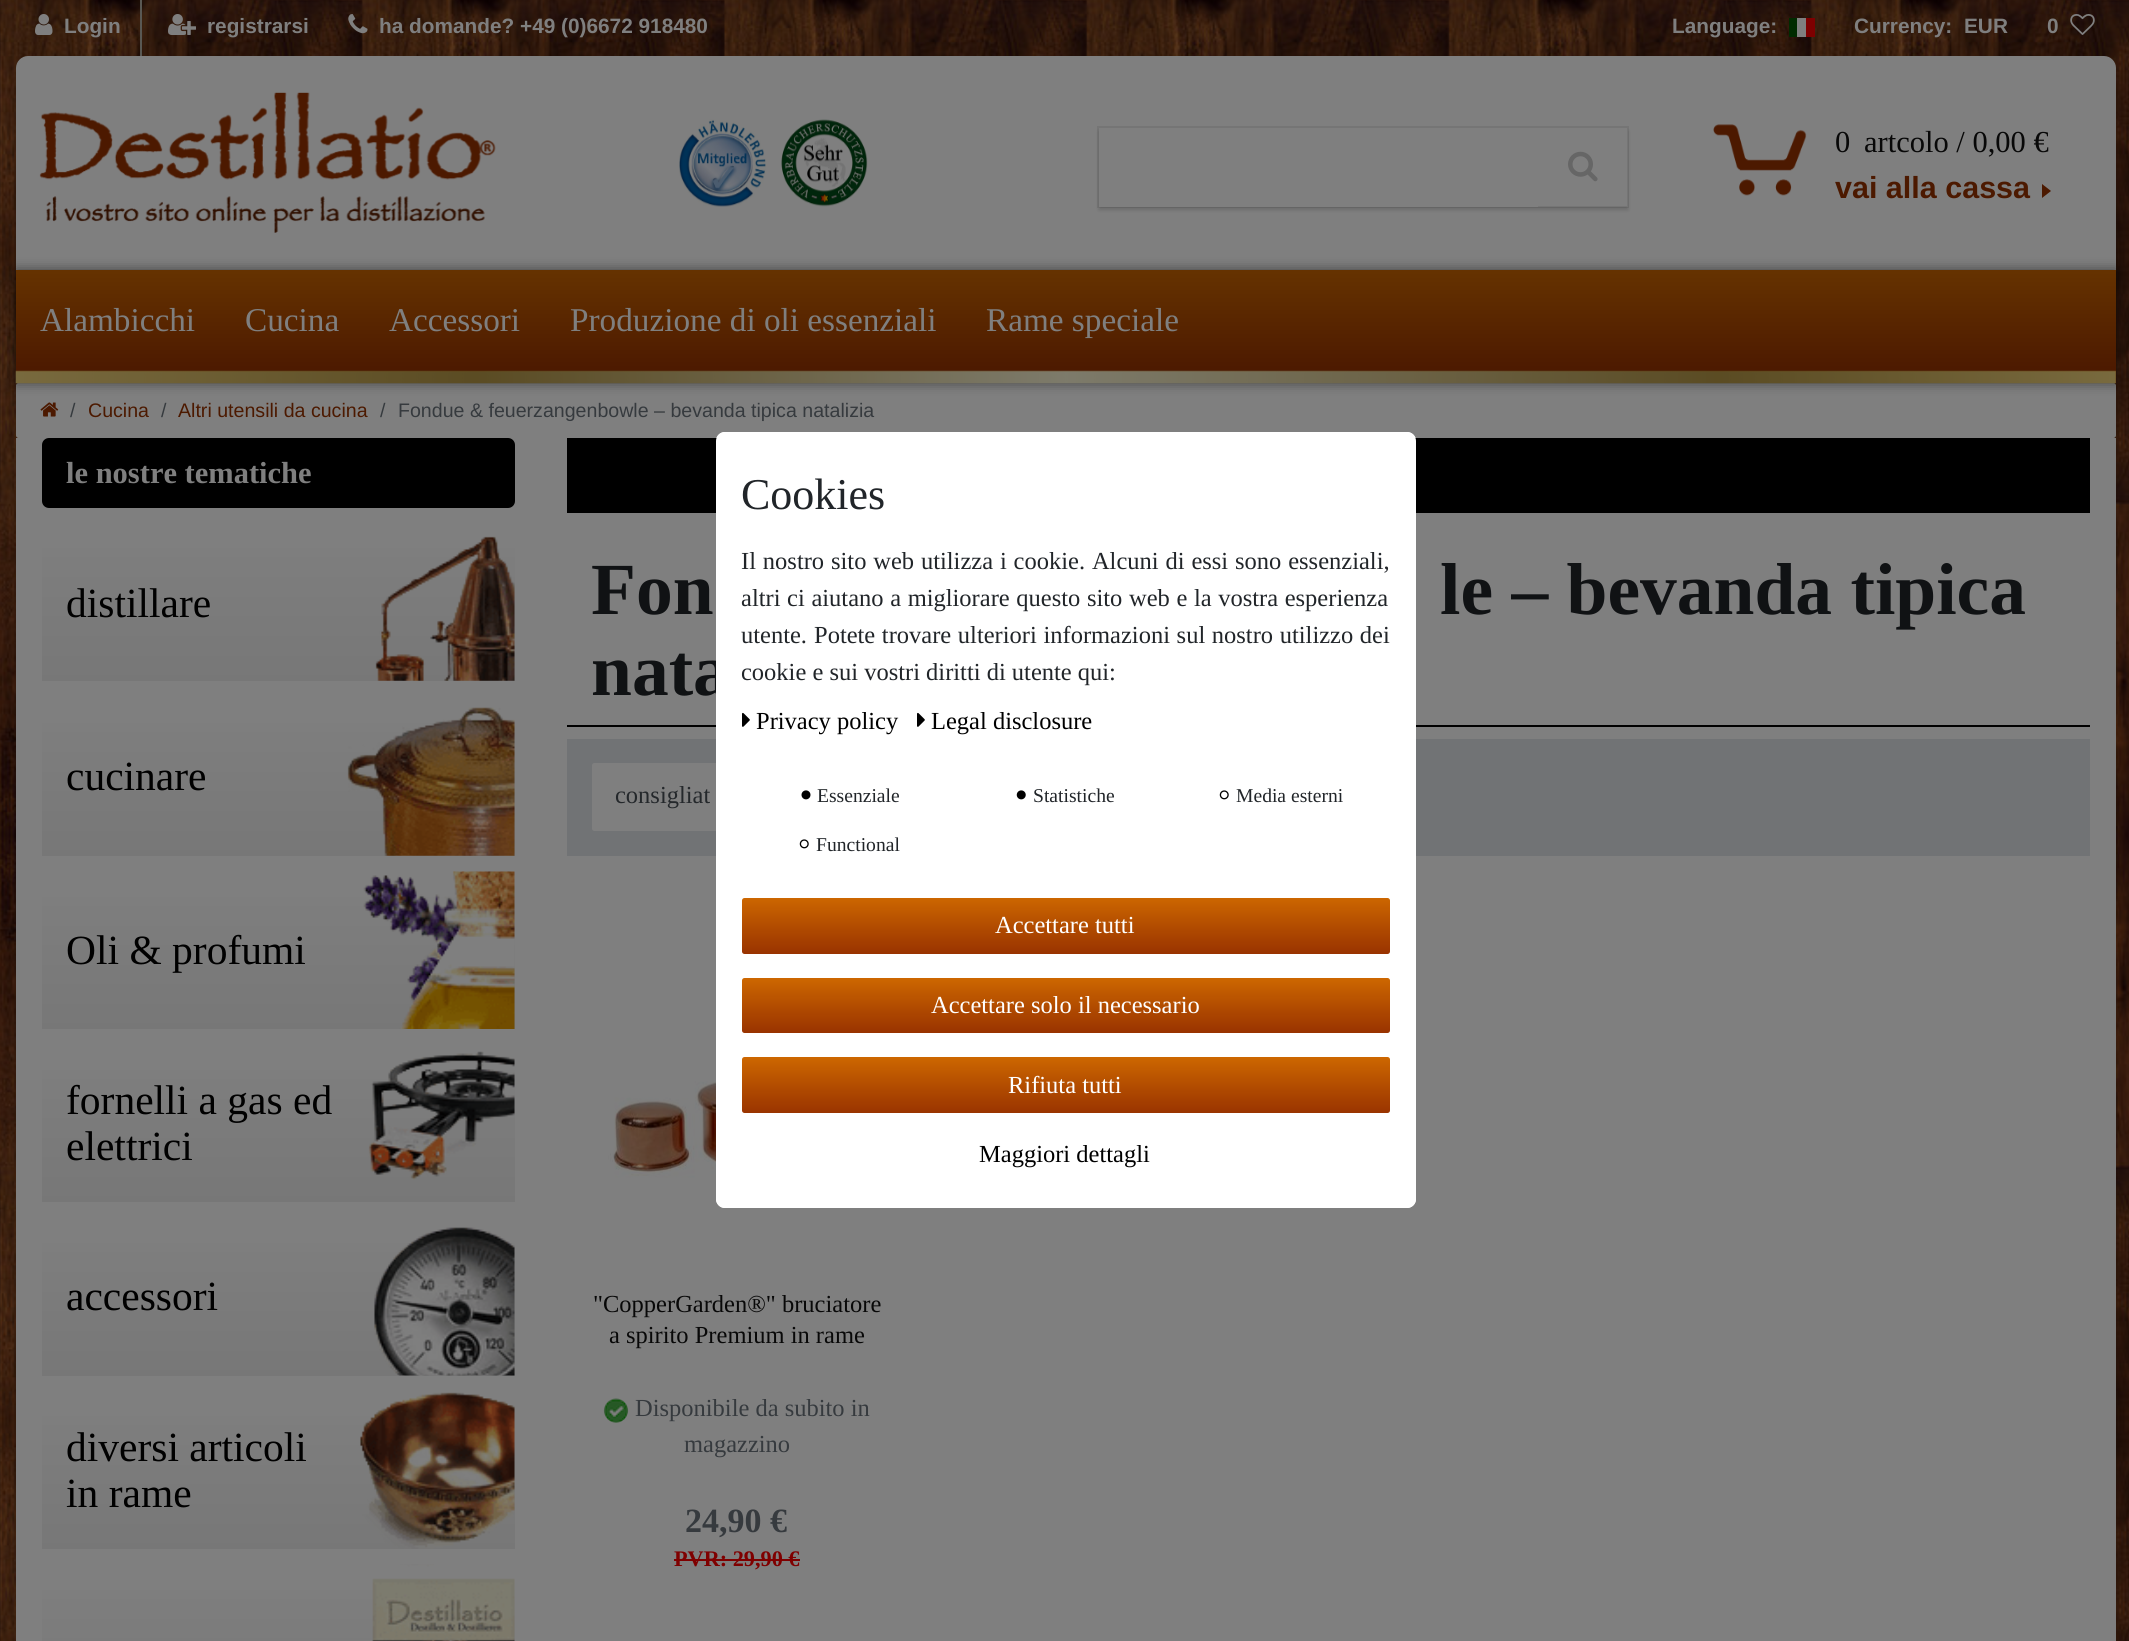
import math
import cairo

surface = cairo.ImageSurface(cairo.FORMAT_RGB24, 2129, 1641)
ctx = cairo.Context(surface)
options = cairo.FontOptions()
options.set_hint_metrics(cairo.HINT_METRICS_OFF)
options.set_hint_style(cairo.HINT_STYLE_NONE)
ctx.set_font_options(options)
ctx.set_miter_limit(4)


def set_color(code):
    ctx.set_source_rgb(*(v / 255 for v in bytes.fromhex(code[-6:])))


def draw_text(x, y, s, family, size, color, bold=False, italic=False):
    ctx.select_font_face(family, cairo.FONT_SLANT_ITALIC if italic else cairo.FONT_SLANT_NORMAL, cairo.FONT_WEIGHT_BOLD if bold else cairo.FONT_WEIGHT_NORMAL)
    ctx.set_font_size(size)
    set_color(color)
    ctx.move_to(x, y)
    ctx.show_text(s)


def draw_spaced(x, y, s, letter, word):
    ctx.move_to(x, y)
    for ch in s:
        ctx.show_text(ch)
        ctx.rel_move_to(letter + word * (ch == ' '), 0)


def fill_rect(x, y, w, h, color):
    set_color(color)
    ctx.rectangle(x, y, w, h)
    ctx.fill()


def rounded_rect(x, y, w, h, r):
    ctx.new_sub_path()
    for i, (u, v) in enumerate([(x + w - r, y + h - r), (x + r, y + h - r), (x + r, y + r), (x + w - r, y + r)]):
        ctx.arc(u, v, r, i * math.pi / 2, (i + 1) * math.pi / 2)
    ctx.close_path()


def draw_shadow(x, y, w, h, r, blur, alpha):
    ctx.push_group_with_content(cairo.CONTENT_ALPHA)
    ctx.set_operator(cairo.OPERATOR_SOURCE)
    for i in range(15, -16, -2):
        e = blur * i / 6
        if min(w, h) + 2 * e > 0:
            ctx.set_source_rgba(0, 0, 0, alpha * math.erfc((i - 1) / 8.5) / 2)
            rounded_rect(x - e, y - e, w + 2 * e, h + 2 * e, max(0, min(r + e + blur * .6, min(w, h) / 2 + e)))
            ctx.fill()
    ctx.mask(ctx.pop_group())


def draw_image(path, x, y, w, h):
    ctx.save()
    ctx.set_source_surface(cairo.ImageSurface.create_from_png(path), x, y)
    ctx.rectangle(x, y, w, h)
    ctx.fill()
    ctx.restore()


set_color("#ffffff")
ctx.paint()
draw_image("assets/img1.png", 0, 0, 2129, 1641)
fill_rect(16, 438, 2100, 1203, "#ffffff")
fill_rect(140, 0, 2, 56, "#b2b1a7")
draw_image("assets/img2.png", 35, 14, 18, 21)
draw_text(64, 33, "Login", "Liberation Sans", 20.8, "#ffffff", bold=True)
draw_image("assets/img3.png", 168, 14, 28, 21)
draw_text(207, 33, "registrarsi", "Liberation Sans", 20.8, "#ffffff", bold=True)
draw_image("assets/img4.png", 348, 14, 20, 20)
draw_text(379, 33, "ha domande? +49 (0)6672 918480", "Liberation Sans", 20.8, "#ffffff", bold=True)
draw_text(1672, 33, "Language:", "Liberation Sans", 20.8, "#ffffff", bold=True)
fill_rect(1797, 18, 9, 19, "#ffffff")
fill_rect(1789, 18, 8, 19, "#005700")
fill_rect(1806, 18, 9, 19, "#fc0000")
draw_text(1854, 33, "Currency:", "Liberation Sans", 20.8, "#ffffff", bold=True)
draw_text(1964, 33, "EUR", "Liberation Sans", 20.8, "#ffffff", bold=True)
draw_text(2047, 33, "0", "Liberation Sans", 20.8, "#ffffff", bold=True)
draw_image("assets/img5.png", 2070, 14, 25, 21)
ctx.new_path()
ctx.move_to(28, 56)
ctx.line_to(2104, 56)
ctx.curve_to(2110.5, 56, 2116, 61.5, 2116, 68)
ctx.line_to(2116, 383)
ctx.line_to(16, 383)
ctx.line_to(16, 68)
ctx.curve_to(16, 61.5, 21.5, 56, 28, 56)
ctx.close_path()
ctx.fill()
draw_image("assets/img6.png", 39, 92, 457, 141)
draw_image("assets/img7.png", 679, 119, 88, 88)
draw_image("assets/img8.png", 781, 119, 87, 88)
ctx.rectangle(1098, 127, 530, 80)
set_color("#ebebeb")
ctx.stroke()
ctx.save()
ctx.set_fill_rule(cairo.FILL_RULE_EVEN_ODD)
ctx.new_path()
ctx.move_to(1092, 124)
ctx.line_to(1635, 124)
ctx.line_to(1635, 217)
ctx.line_to(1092, 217)
ctx.close_path()
ctx.move_to(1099, 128)
ctx.line_to(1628, 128)
ctx.line_to(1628, 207)
ctx.line_to(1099, 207)
ctx.close_path()
ctx.clip()
set_color("#000000")
draw_shadow(1099, 131, 529, 79, 0, 2, 0.16)
ctx.restore()
draw_image("assets/img9.png", 1568, 151, 30, 31)
fill_rect(1099, 206, 439, 1, "#ffffff")
draw_image("assets/img10.png", 1713, 124, 94, 72)
draw_text(1835, 152, "0", "Liberation Serif", 30.5, "#111111")
draw_text(1864, 152, "artcolo / 0,00 €", "Liberation Serif", 30.5, "#111111")
draw_text(1835, 198, "vai alla cassa", "Liberation Sans", 30.5, "#993300", bold=True)
ctx.new_path()
ctx.move_to(2042, 198)
ctx.line_to(2042, 184)
ctx.line_to(2051, 191)
ctx.close_path()
ctx.fill()
set_color("#ffffff")
rounded_rect(16, 383, 2100, 55, 2.5)
ctx.fill()
set_color("#000000")
draw_shadow(16, 270, 2100, 113, 0, 6, 0.5)
gradient = cairo.LinearGradient(1066, 269, 1066, 371)
gradient.add_color_stop_rgba(0, 0.8, 0.4, 0, 1)
gradient.add_color_stop_rgba(1, 0.6, 0.2, 0, 1)
ctx.set_source(gradient)
ctx.rectangle(16, 270, 2100, 101)
ctx.fill()
gradient = cairo.LinearGradient(1066, 371, 1066, 473)
gradient.add_color_stop_rgba(0, 0.8, 0.4, 0, 1)
gradient.add_color_stop_rgba(1, 0.6, 0.2, 0, 1)
ctx.set_source(gradient)
ctx.rectangle(16, 371, 2100, 12)
ctx.fill()
draw_image("assets/img11.png", 15, 370, 2101, 14)
draw_text(40, 331, "Alambicchi", "Liberation Serif", 33.25, "#ffffff")
draw_text(245, 331, "Cucina", "Liberation Serif", 33.25, "#ffffff")
draw_text(389, 331, "Accessori", "Liberation Serif", 33.25, "#ffffff")
draw_text(570, 331, "Produzione di oli essenziali", "Liberation Serif", 33.25, "#ffffff")
draw_text(986, 331, "Rame speciale", "Liberation Serif", 33.25, "#ffffff")
draw_image("assets/img12.png", 40, 402, 19, 15)
draw_text(70, 417, "/", "Liberation Sans", 19.6, "#6c757d")
draw_text(88, 417, "Cucina", "Liberation Sans", 19.6, "#993300")
draw_text(161, 417, "/", "Liberation Sans", 19.6, "#6c757d")
draw_text(178, 417, "Altri utensili da cucina", "Liberation Sans", 19.6, "#993300")
draw_text(380, 417, "/", "Liberation Sans", 19.6, "#6c757d")
draw_text(398, 417, "Fondue & feuerzangenbowle – bevanda tipica natalizia", "Liberation Sans", 19.6, "#6c757d")
set_color("#000000")
rounded_rect(42, 438, 473, 70, 7)
ctx.fill()
draw_text(66, 483, "le nostre tematiche", "Liberation Serif", 30.5, "#ffffff", bold=True)
gradient = cairo.LinearGradient(278, 523, 278, 681)
gradient.add_color_stop_rgba(0, 1, 1, 1, 1)
gradient.add_color_stop_rgba(1, 0.937, 0.937, 0.937, 1)
ctx.set_source(gradient)
ctx.rectangle(42, 548, 473, 133)
ctx.fill()
draw_text(66, 617, "distillare", "Liberation Serif", 41.5, "#000000")
draw_image("assets/img13.png", 375, 536, 140, 145)
gradient = cairo.LinearGradient(278, 698, 278, 856)
gradient.add_color_stop_rgba(0, 1, 1, 1, 1)
gradient.add_color_stop_rgba(1, 0.937, 0.937, 0.937, 1)
ctx.set_source(gradient)
ctx.rectangle(42, 723, 473, 133)
ctx.fill()
draw_text(66, 790, "cucinare", "Liberation Serif", 41.5, "#000000")
draw_image("assets/img14.png", 347, 707, 168, 149)
gradient = cairo.LinearGradient(278, 872, 278, 1029)
gradient.add_color_stop_rgba(0, 1, 1, 1, 1)
gradient.add_color_stop_rgba(1, 0.937, 0.937, 0.937, 1)
ctx.set_source(gradient)
ctx.rectangle(42, 897, 473, 132)
ctx.fill()
draw_text(66, 964, "Oli & profumi", "Liberation Serif", 41.5, "#000000")
draw_image("assets/img15.png", 363, 871, 152, 158)
gradient = cairo.LinearGradient(278, 1045, 278, 1202)
gradient.add_color_stop_rgba(0, 1, 1, 1, 1)
gradient.add_color_stop_rgba(1, 0.937, 0.937, 0.937, 1)
ctx.set_source(gradient)
ctx.rectangle(42, 1070, 473, 132)
ctx.fill()
draw_text(66, 1114, "fornelli a gas ed", "Liberation Serif", 41.5, "#000000")
draw_text(66, 1160, "elettrici", "Liberation Serif", 41.5, "#000000")
draw_image("assets/img16.png", 368, 1051, 147, 129)
gradient = cairo.LinearGradient(278, 1218, 278, 1376)
gradient.add_color_stop_rgba(0, 1, 1, 1, 1)
gradient.add_color_stop_rgba(1, 0.937, 0.937, 0.937, 1)
ctx.set_source(gradient)
ctx.rectangle(42, 1243, 473, 133)
ctx.fill()
draw_text(66, 1310, "accessori", "Liberation Serif", 41.5, "#000000")
draw_image("assets/img17.png", 374, 1227, 141, 149)
gradient = cairo.LinearGradient(278, 1391, 278, 1549)
gradient.add_color_stop_rgba(0, 1, 1, 1, 1)
gradient.add_color_stop_rgba(1, 0.937, 0.937, 0.937, 1)
ctx.set_source(gradient)
ctx.rectangle(42, 1416, 473, 133)
ctx.fill()
draw_text(66, 1461, "diversi articoli", "Liberation Serif", 41.5, "#000000")
draw_text(66, 1507, "in rame", "Liberation Serif", 41.5, "#000000")
draw_image("assets/img18.png", 360, 1392, 155, 157)
gradient = cairo.LinearGradient(278, 1565, 278, 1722)
gradient.add_color_stop_rgba(0, 1, 1, 1, 1)
gradient.add_color_stop_rgba(1, 0.937, 0.937, 0.937, 1)
ctx.set_source(gradient)
ctx.rectangle(42, 1590, 473, 51)
ctx.fill()
draw_image("assets/img19.png", 372, 1564, 143, 77)
fill_rect(567, 438, 1523, 75, "#000000")
fill_rect(567, 725, 1523, 2, "#000000")
draw_text(591, 614, "Fon", "Liberation Serif", 73.5, "#212529", bold=True)
draw_text(1440, 614, "le – bevanda tipica", "Liberation Serif", 73.5, "#212529", bold=True)
draw_text(591, 695, "nata", "Liberation Serif", 73.5, "#212529", bold=True)
fill_rect(567, 739, 1523, 117, "#e3e7eb")
set_color("#ffffff")
rounded_rect(592, 763, 182, 68, 2.5)
ctx.fill()
draw_text(615, 803, "consigliat", "Liberation Serif", 24.5, "#495057")
draw_image("assets/img20.png", 608, 1018, 108, 160)
draw_text(593, 1312, "\"CopperGarden®\" bruciatore", "Liberation Serif", 24.5, "#111111")
draw_text(609, 1343, "a spirito Premium in rame", "Liberation Serif", 24.5, "#111111")
draw_image("assets/img21.png", 603, 1398, 26, 25)
draw_text(635, 1416, "Disponibile da subito in", "Liberation Serif", 24.5, "#6c757d")
draw_text(684, 1452, "magazzino", "Liberation Serif", 24.5, "#6c757d")
draw_text(685, 1532, "24,90 €", "Liberation Serif", 34, "#6c757d", bold=True)
draw_text(674, 1566, "PVR: 29,90 €", "Liberation Serif", 22.25, "#ff0000", bold=True)
fill_rect(674, 1559, 126, 2, "#ff0000")
rounded_rect(-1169.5, -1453.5, 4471, 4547, 1894.5)
ctx.set_source_rgba(0, 0, 0, 0.5)
ctx.set_line_width(3771)
ctx.stroke()
set_color("#ffffff")
rounded_rect(716, 432, 700, 776, 9)
ctx.fill()
draw_text(741, 509, "Cookies", "Liberation Serif", 44, "#212529")
ctx.set_font_size(24.5)
draw_spaced(741, 569, "Il nostro sito web utilizza i cookie. Alcuni di essi sono essenziali,", 0, 0.75)
draw_spaced(741, 606, "altri ci aiutano a migliorare questo sito web e la vostra esperienza", 0, 0.5)
draw_text(741, 643, "utente.", "Liberation Serif", 24.5, "#212529")
draw_spaced(814, 643, "Potete trovare ulteriori informazioni sul nostro utilizzo dei", 0, 0.5)
draw_text(741, 680, "cookie e sui vostri diritti di utente qui:", "Liberation Serif", 24.5, "#212529")
draw_image("assets/img22.png", 742, 712, 8, 15)
draw_text(756, 729, "Privacy policy", "Liberation Serif", 24.5, "#000000")
draw_image("assets/img22.png", 917, 712, 8, 15)
draw_text(931, 729, "Legal disclosure", "Liberation Serif", 24.5, "#000000")
draw_image("assets/img23.png", 801, 790, 10, 10)
draw_text(817, 802, "Essenziale", "Liberation Serif", 19.6, "#212529")
draw_image("assets/img24.png", 1016, 790, 10, 10)
draw_text(1033, 802, "Statistiche", "Liberation Serif", 19.6, "#212529")
draw_image("assets/img25.png", 1219, 790, 10, 10)
draw_text(1236, 802, "Media esterni", "Liberation Serif", 19.6, "#212529")
draw_image("assets/img25.png", 799, 839, 10, 10)
draw_text(816, 851, "Functional", "Liberation Serif", 19.6, "#212529")
gradient = cairo.LinearGradient(1066, 898, 1066, 954)
gradient.add_color_stop_rgba(0, 0.8, 0.4, 0, 1)
gradient.add_color_stop_rgba(1, 0.6, 0.2, 0, 1)
ctx.set_source(gradient)
rounded_rect(742, 898, 648, 56, 2.5)
ctx.fill()
draw_text(995, 933, "Accettare tutti", "Liberation Serif", 24.5, "#ffffff")
gradient = cairo.LinearGradient(1066, 979, 1066, 1033)
gradient.add_color_stop_rgba(0, 0.8, 0.4, 0, 1)
gradient.add_color_stop_rgba(1, 0.6, 0.2, 0, 1)
ctx.set_source(gradient)
rounded_rect(742, 978, 648, 55, 2.5)
ctx.fill()
draw_text(931, 1013, "Accettare solo il necessario", "Liberation Serif", 24.5, "#ffffff")
gradient = cairo.LinearGradient(1066, 1058, 1066, 1114)
gradient.add_color_stop_rgba(0, 0.8, 0.4, 0, 1)
gradient.add_color_stop_rgba(1, 0.6, 0.2, 0, 1)
ctx.set_source(gradient)
rounded_rect(742, 1057, 648, 56, 2.5)
ctx.fill()
draw_text(1008, 1093, "Rifiuta tutti", "Liberation Serif", 24.5, "#ffffff")
draw_text(979, 1162, "Maggiori dettagli", "Liberation Serif", 24.5, "#000000")
surface.write_to_png("output.png")
